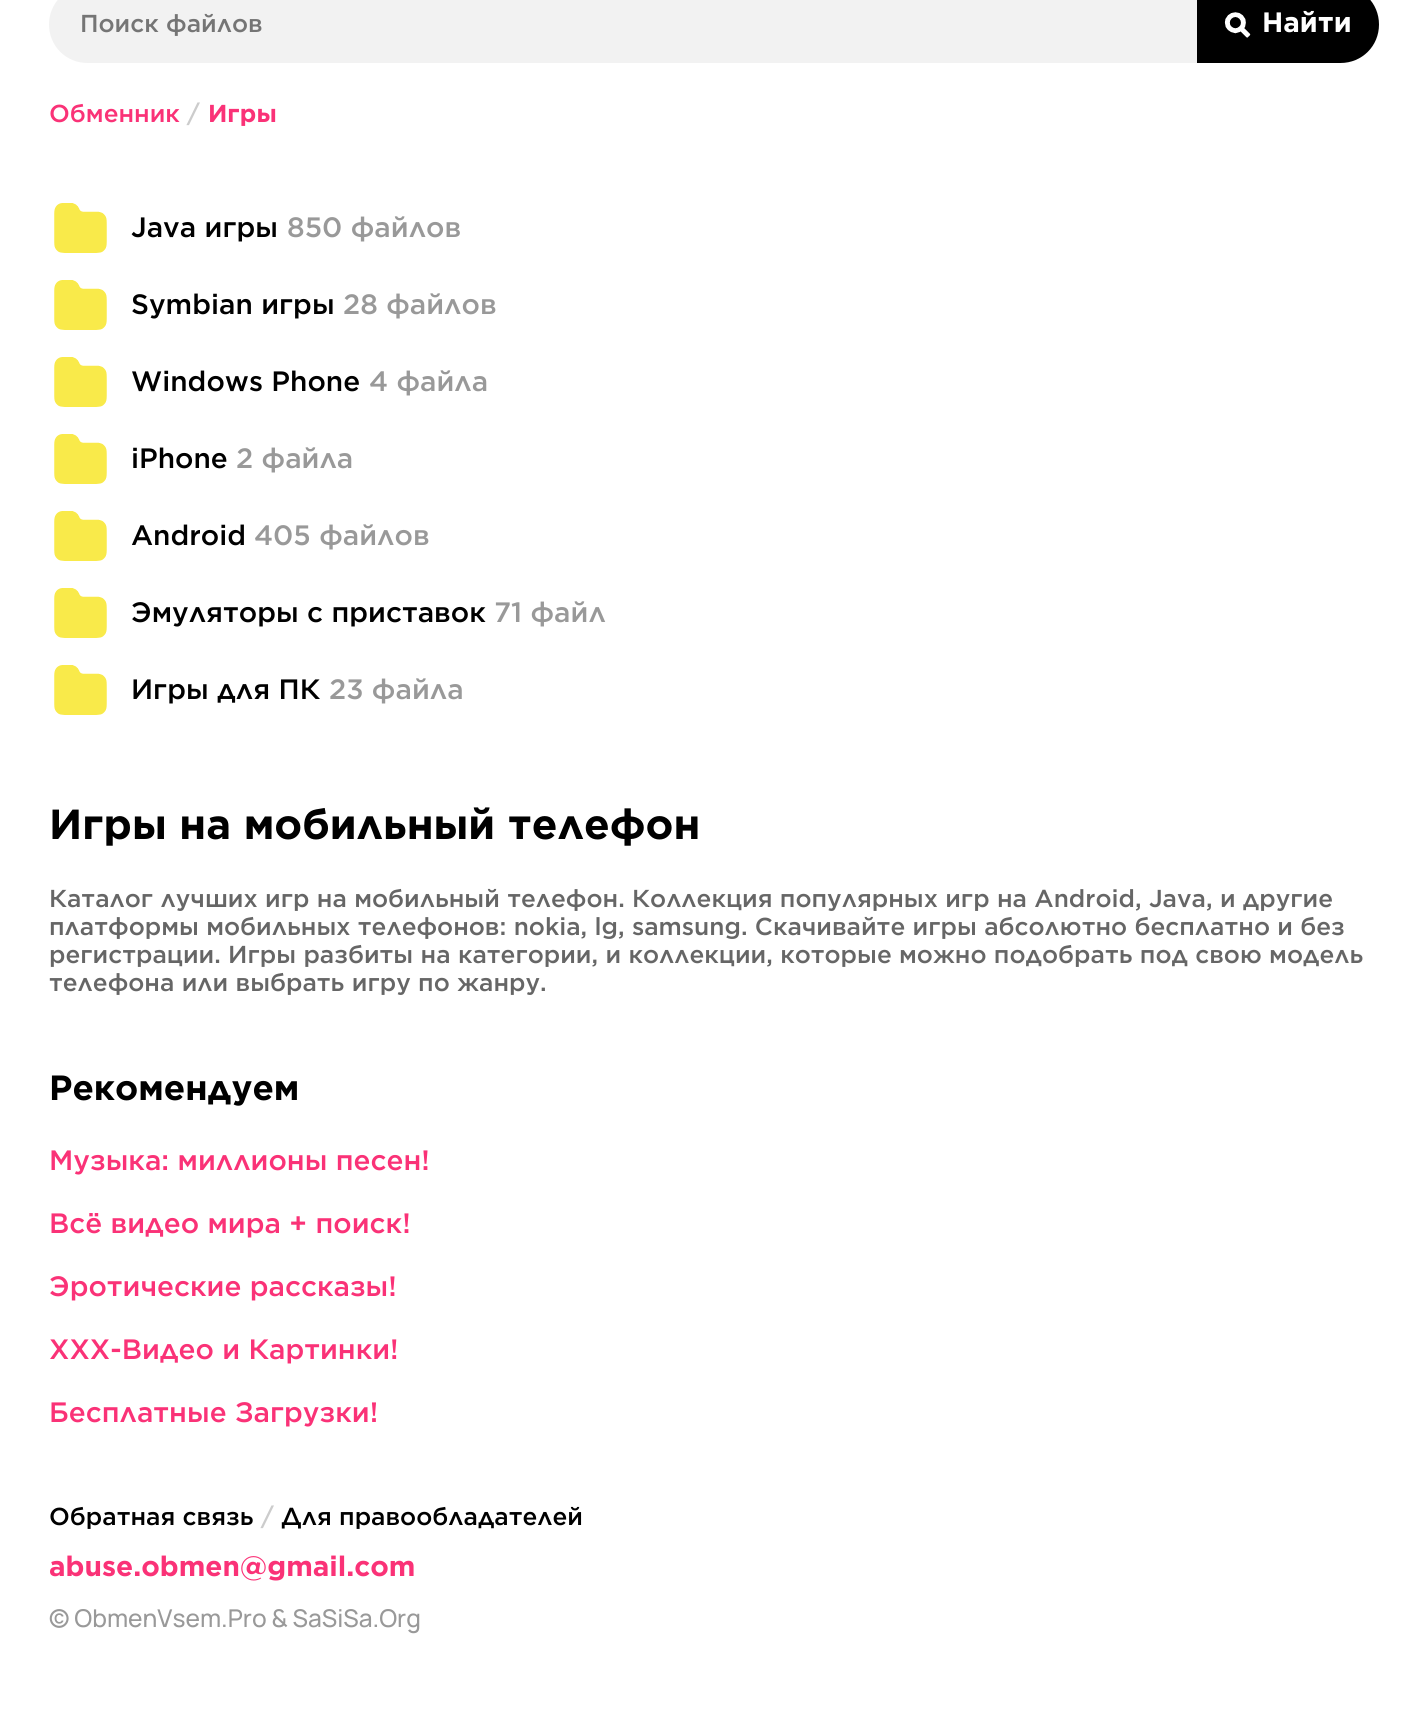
import math
import cairo

surface = cairo.ImageSurface(cairo.FORMAT_RGB24, 1428, 1709)
ctx = cairo.Context(surface)
options = cairo.FontOptions()
options.set_hint_metrics(cairo.HINT_METRICS_OFF)
options.set_hint_style(cairo.HINT_STYLE_NONE)
ctx.set_font_options(options)
ctx.set_miter_limit(4)


def set_color(code):
    ctx.set_source_rgb(*(v / 255 for v in bytes.fromhex(code[-6:])))


def draw_text(x, y, s, family, size, color, bold=False, italic=False):
    ctx.select_font_face(family, cairo.FONT_SLANT_ITALIC if italic else cairo.FONT_SLANT_NORMAL, cairo.FONT_WEIGHT_BOLD if bold else cairo.FONT_WEIGHT_NORMAL)
    ctx.set_font_size(size)
    set_color(color)
    ctx.move_to(x, y)
    ctx.show_text(s)


def draw_image(path, x, y, w, h):
    ctx.save()
    ctx.set_source_surface(cairo.ImageSurface.create_from_png(path), x, y)
    ctx.rectangle(x, y, w, h)
    ctx.fill()
    ctx.restore()


set_color("#ffffff")
ctx.paint()
set_color("#f2f2f2")
ctx.new_path()
ctx.move_to(87.5, -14)
ctx.line_to(1197, -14)
ctx.line_to(1197, 63)
ctx.line_to(87.5, 63)
ctx.curve_to(66, 63, 49, 46, 49, 24.5)
ctx.curve_to(49, 3, 66, -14, 87.5, -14)
ctx.close_path()
ctx.fill()
draw_text(80, 32, "Поиск файлов", "Gotham Medium", 24.5, "#757575")
set_color("#000000")
ctx.new_path()
ctx.move_to(1197, -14)
ctx.line_to(1340.5, -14)
ctx.curve_to(1362, -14, 1379, 3, 1379, 24.5)
ctx.curve_to(1379, 46, 1362, 63, 1340.5, 63)
ctx.line_to(1197, 63)
ctx.close_path()
ctx.fill()
draw_image("assets/img1.png", 1224, 12, 27, 26)
draw_text(1262, 32, "Найти", "Gotham", 28, "#ffffff", bold=True)
draw_text(49, 122, "Обменник", "Gotham Medium", 24.5, "#fa3277")
draw_text(187, 122, "/", "Gotham Medium", 24.5, "#cccccc")
draw_text(208, 122, "Игры", "Gotham", 24.5, "#fa3277", bold=True)
draw_image("assets/img2.png", 54, 203, 53, 50)
draw_text(131, 237, "Java игры", "Gotham Medium", 28, "#000000")
draw_text(287, 237, "850 файлов", "Gotham Medium", 28, "#999999")
draw_image("assets/img2.png", 54, 280, 53, 50)
draw_text(131, 314, "Symbian игры", "Gotham Medium", 28, "#000000")
draw_text(343, 314, "28 файлов", "Gotham Medium", 28, "#999999")
draw_image("assets/img2.png", 54, 357, 53, 50)
draw_text(131, 391, "Windows Phone", "Gotham Medium", 28, "#000000")
draw_text(369, 391, "4 файла", "Gotham Medium", 28, "#999999")
draw_image("assets/img2.png", 54, 434, 53, 50)
draw_text(131, 468, "iPhone", "Gotham Medium", 28, "#000000")
draw_text(236, 468, "2 файла", "Gotham Medium", 28, "#999999")
draw_image("assets/img2.png", 54, 511, 53, 50)
draw_text(131, 545, "Android", "Gotham Medium", 28, "#000000")
draw_text(254, 545, "405 файлов", "Gotham Medium", 28, "#999999")
draw_image("assets/img3.png", 54, 588, 53, 50)
draw_text(131, 622, "Эмуляторы с приставок", "Gotham Medium", 28, "#000000")
draw_text(494, 622, "71 файл", "Gotham Medium", 28, "#999999")
draw_image("assets/img2.png", 54, 665, 53, 50)
draw_text(131, 699, "Игры для ПК", "Gotham Medium", 28, "#000000")
draw_text(329, 699, "23 файла", "Gotham Medium", 28, "#999999")
draw_text(49, 839, "Игры на мобильный телефон", "Gotham", 42, "#000000", bold=True)
draw_text(49, 907, "Каталог лучших игр на мобильный телефон. Коллекция популярных игр на Android, Java, и другие", "Gotham Medium", 24.5, "#666666")
draw_text(49, 935, "платформы мобильных телефонов: nokia, lg, samsung. Скачивайте игры абсолютно бесплатно и без", "Gotham Medium", 24.5, "#666666")
draw_text(49, 963, "регистрации. Игры разбиты на категории, и коллекции, которые можно подобрать под свою модель", "Gotham Medium", 24.5, "#666666")
draw_text(49, 991, "телефона или выбрать игру по жанру.", "Gotham Medium", 24.5, "#666666")
draw_text(49, 1100, "Рекомендуем", "Gotham", 35, "#000000", bold=True)
draw_text(49, 1170, "Музыка: миллионы песен!", "Gotham Medium", 28, "#fa3277")
draw_text(49, 1233, "Всё видео мира + поиск!", "Gotham Medium", 28, "#fa3277")
draw_text(49, 1296, "Эротические рассказы!", "Gotham Medium", 28, "#fa3277")
draw_text(49, 1359, "XXX-Видео и Картинки!", "Gotham Medium", 28, "#fa3277")
draw_text(49, 1422, "Бесплатные Загрузки!", "Gotham Medium", 28, "#fa3277")
draw_text(49, 1525, "Обратная связь", "Gotham Medium", 24.5, "#000000")
draw_text(261, 1525, "/", "Gotham Medium", 24.5, "#cccccc")
draw_text(281, 1525, "Для правообладателей", "Gotham Medium", 24.5, "#000000")
draw_text(49, 1576, "abuse.obmen@gmail.com", "Gotham", 28, "#fa3277", bold=True)
draw_text(49, 1627, "© ObmenVsem.Pro & SaSiSa.Org", "Manrope Medium", 24.5, "#999999")
surface.write_to_png("output.png")
